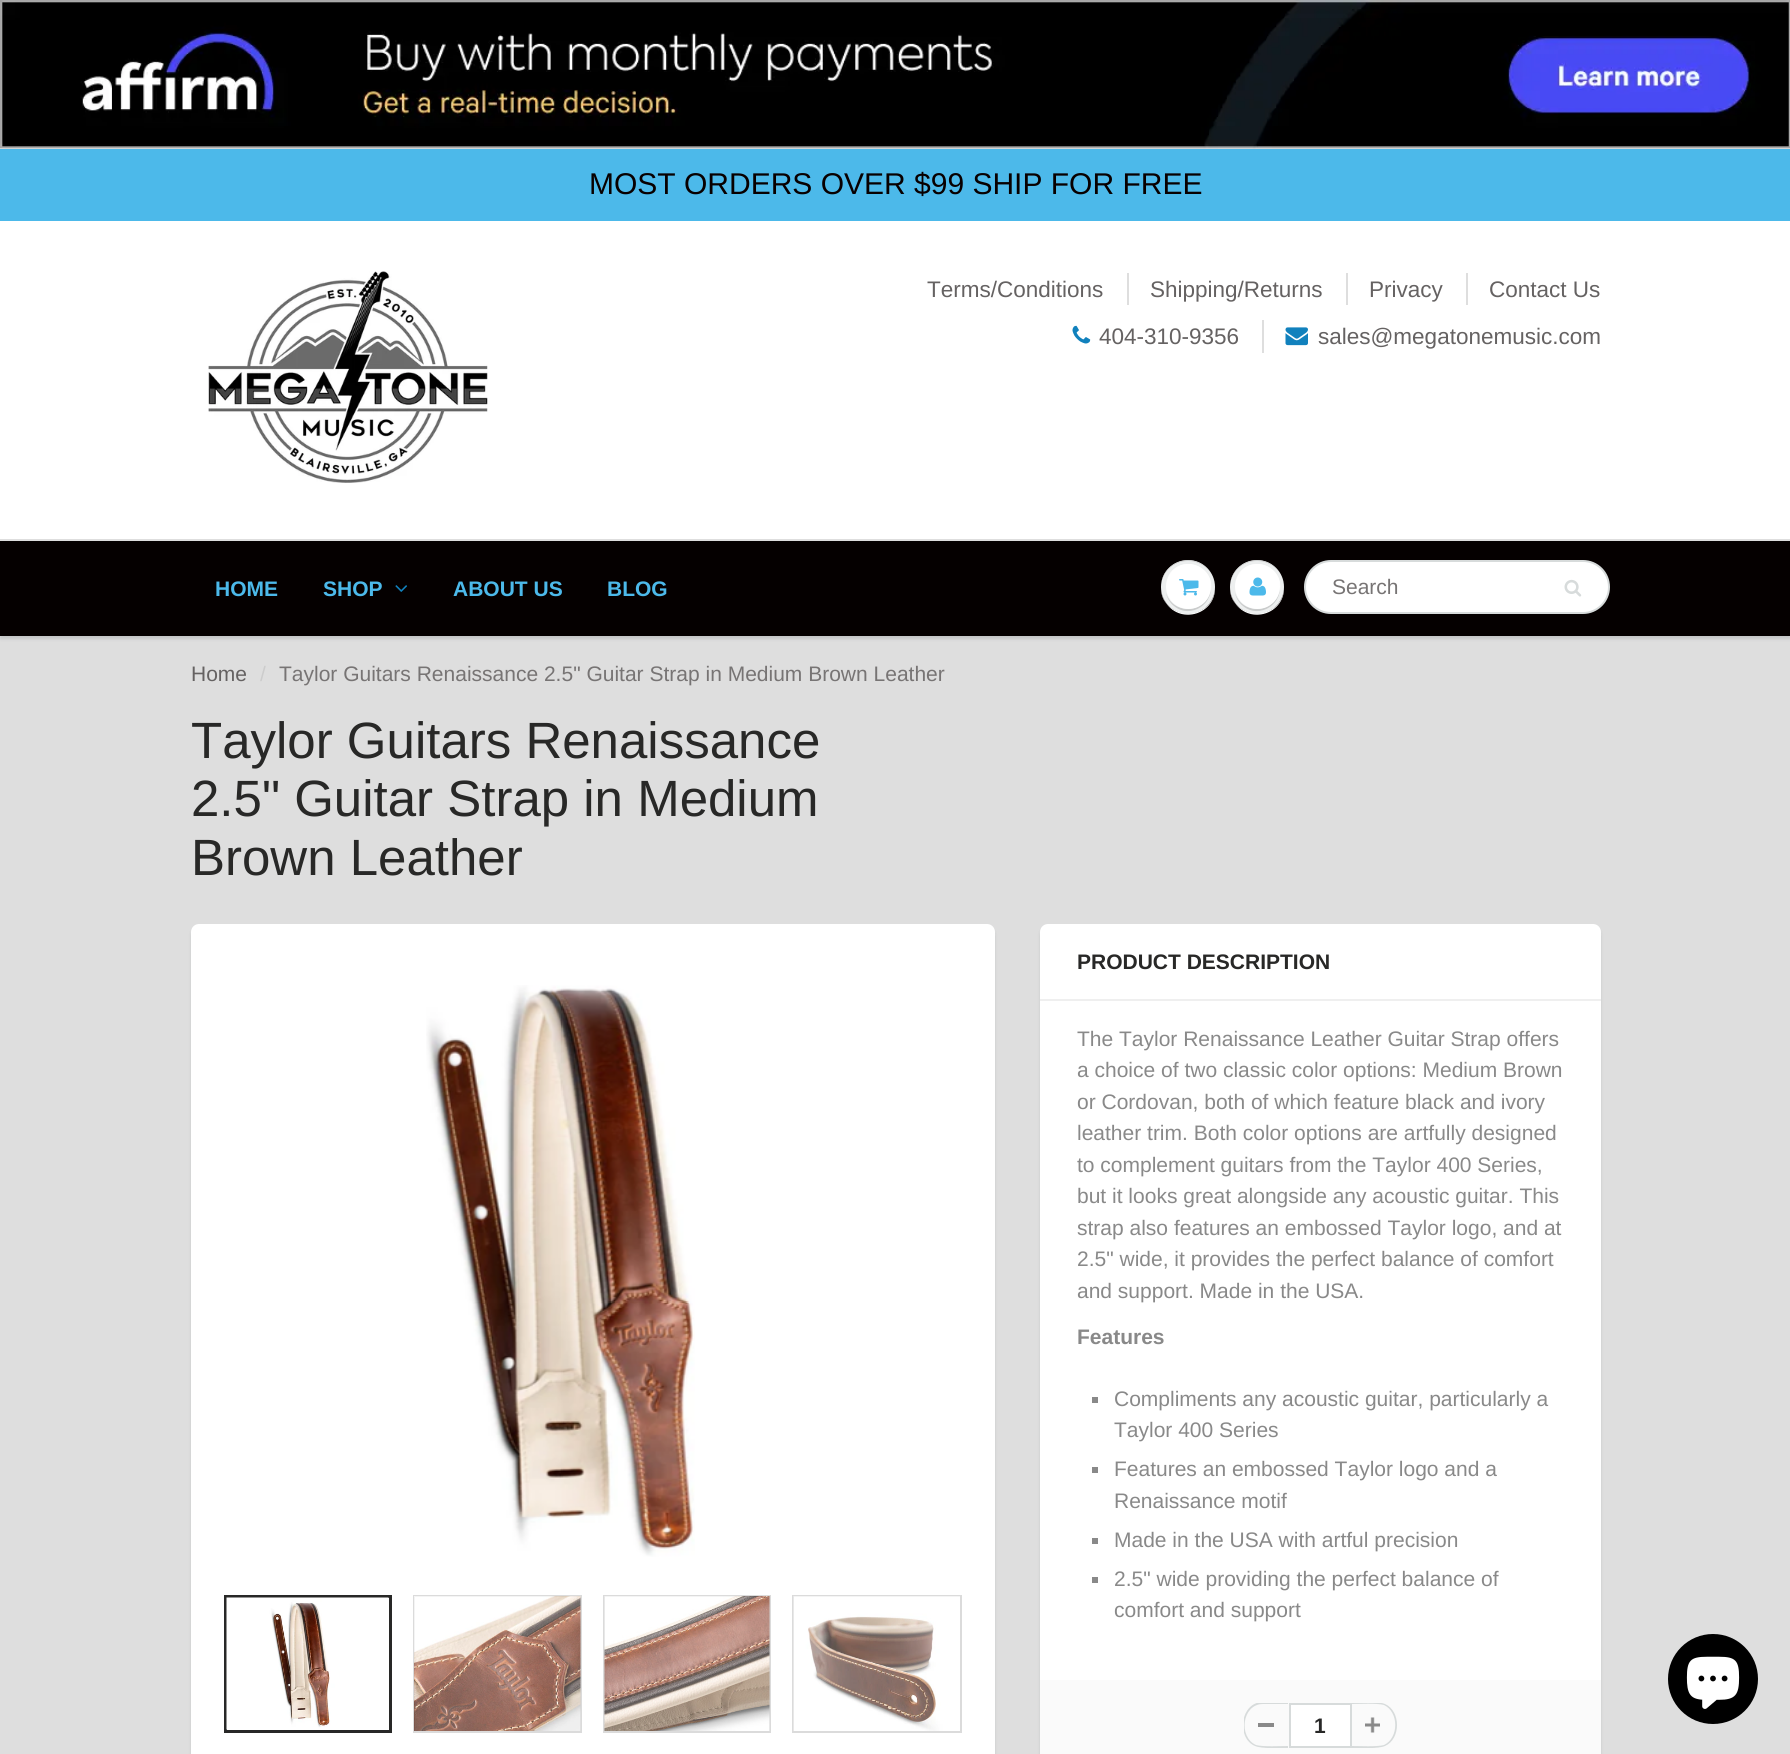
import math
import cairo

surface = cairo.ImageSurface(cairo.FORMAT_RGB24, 1790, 1754)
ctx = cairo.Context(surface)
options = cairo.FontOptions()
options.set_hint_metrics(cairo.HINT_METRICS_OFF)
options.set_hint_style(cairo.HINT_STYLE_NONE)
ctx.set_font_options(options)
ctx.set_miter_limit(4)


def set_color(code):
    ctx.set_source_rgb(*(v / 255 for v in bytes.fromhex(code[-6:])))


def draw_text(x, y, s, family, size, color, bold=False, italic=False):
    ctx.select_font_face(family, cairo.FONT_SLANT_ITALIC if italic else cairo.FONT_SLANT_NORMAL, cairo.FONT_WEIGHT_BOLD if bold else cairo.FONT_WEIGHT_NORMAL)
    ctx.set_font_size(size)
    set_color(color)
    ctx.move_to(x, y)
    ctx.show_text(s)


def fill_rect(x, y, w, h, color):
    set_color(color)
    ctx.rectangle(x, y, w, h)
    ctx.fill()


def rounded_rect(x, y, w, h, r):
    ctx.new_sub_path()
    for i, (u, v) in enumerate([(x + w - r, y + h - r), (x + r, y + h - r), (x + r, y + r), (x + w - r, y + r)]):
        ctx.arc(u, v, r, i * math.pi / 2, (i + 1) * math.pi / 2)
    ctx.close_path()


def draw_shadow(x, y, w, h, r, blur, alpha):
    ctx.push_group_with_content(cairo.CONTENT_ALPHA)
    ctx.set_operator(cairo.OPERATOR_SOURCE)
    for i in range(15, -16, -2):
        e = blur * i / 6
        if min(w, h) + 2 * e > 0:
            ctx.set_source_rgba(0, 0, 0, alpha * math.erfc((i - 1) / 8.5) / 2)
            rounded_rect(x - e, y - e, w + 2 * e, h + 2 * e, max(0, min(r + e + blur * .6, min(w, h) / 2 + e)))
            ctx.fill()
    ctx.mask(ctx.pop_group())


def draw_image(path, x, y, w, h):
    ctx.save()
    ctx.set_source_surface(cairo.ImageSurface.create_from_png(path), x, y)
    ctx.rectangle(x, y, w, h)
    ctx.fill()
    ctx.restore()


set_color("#ffffff")
ctx.paint()
draw_image("assets/img1.png", 0, 0, 1790, 149)
fill_rect(0, 149, 1790, 72, "#4cb9ea")
draw_text(589, 194, "MOST ORDERS OVER $99 SHIP FOR FREE", "Arimo", 30, "#080000")
draw_image("assets/img2.png", 208, 271, 280, 212)
draw_text(927, 297, "Terms/Conditions", "Arimo", 22.5, "#656262")
fill_rect(1127, 273, 2, 32, "#dedede")
draw_text(1150, 297, "Shipping/Returns", "Arimo", 22.5, "#656262")
fill_rect(1346, 273, 2, 32, "#dedede")
draw_text(1369, 297, "Privacy", "Arimo", 22.5, "#656262")
fill_rect(1466, 273, 2, 32, "#dedede")
draw_text(1489, 297, "Contact Us", "Arimo", 22.5, "#656262")
draw_image("assets/img3.png", 1072, 325, 19, 19)
draw_text(1099, 344, "404-310-9356", "Arimo", 22.5, "#656262")
fill_rect(1262, 320, 2, 33, "#dedede")
draw_image("assets/img4.png", 1285, 327, 23, 19)
draw_text(1318, 344, "sales@megatonemusic.com", "Arimo", 22.5, "#656262")
fill_rect(0, 636, 1790, 1118, "#dedede")
set_color("#0b191c")
draw_shadow(0, 542, 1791, 97, 0, 1.5, 0.12)
fill_rect(0, 541, 1790, 95, "#050000")
fill_rect(0, 539, 1790, 2, "#dedede")
draw_text(215, 596, "HOME", "Arimo", 21, "#4cb9ea", bold=True)
draw_text(323, 596, "SHOP", "Arimo", 21, "#4cb9ea", bold=True)
draw_image("assets/img5.png", 395, 585, 12, 7)
draw_text(453, 596, "ABOUT US", "Arimo", 21, "#4cb9ea", bold=True)
draw_text(607, 596, "BLOG", "Arimo", 21, "#4cb9ea", bold=True)
set_color("#ffffff")
ctx.new_path()
ctx.move_to(1215, 587)
ctx.curve_to(1214, 622, 1162, 622, 1161, 587)
ctx.curve_to(1161, 593, 1162, 598, 1166, 603)
ctx.curve_to(1181, 625, 1216, 614, 1215, 587)
ctx.close_path()
ctx.fill()
set_color("#edefef")
ctx.arc(1188, 587, 27, 0, 2 * math.pi)
ctx.fill()
set_color("#c9cbcb")
ctx.new_path()
ctx.move_to(1188, 561)
ctx.curve_to(1203, 561, 1215, 573, 1215, 587)
ctx.curve_to(1215, 582, 1213, 576, 1210, 572)
ctx.curve_to(1195, 550, 1161, 561, 1161, 587)
ctx.curve_to(1161, 573, 1173, 561, 1188, 561)
ctx.close_path()
ctx.fill()
ctx.new_path()
ctx.move_to(1166, 593)
ctx.curve_to(1167, 598, 1170, 603, 1174, 606)
ctx.curve_to(1191, 620, 1216, 603, 1210, 582)
ctx.curve_to(1216, 610, 1175, 620, 1166, 593)
ctx.close_path()
ctx.fill()
set_color("#ffffff")
ctx.arc(1188.5, 586.5, 22.5, 0, 2 * math.pi)
ctx.fill()
ctx.new_path()
ctx.move_to(1188, 566)
ctx.curve_to(1206, 566, 1213, 581, 1210, 594)
ctx.curve_to(1219, 566, 1178, 551, 1167, 579)
ctx.curve_to(1170, 572, 1177, 566, 1188, 566)
ctx.close_path()
ctx.fill()
draw_image("assets/img6.png", 1179, 579, 20, 17)
ctx.new_path()
ctx.move_to(1284, 587)
ctx.curve_to(1283, 622, 1231, 622, 1230, 587)
ctx.curve_to(1230, 593, 1231, 598, 1235, 603)
ctx.curve_to(1250, 625, 1285, 614, 1284, 587)
ctx.close_path()
ctx.fill()
set_color("#edefef")
ctx.arc(1257, 587, 27, 0, 2 * math.pi)
ctx.fill()
set_color("#c9cbcb")
ctx.new_path()
ctx.move_to(1257, 561)
ctx.curve_to(1272, 561, 1284, 573, 1284, 587)
ctx.curve_to(1284, 582, 1282, 576, 1279, 572)
ctx.curve_to(1264, 550, 1230, 561, 1230, 587)
ctx.curve_to(1230, 573, 1242, 561, 1257, 561)
ctx.close_path()
ctx.fill()
ctx.new_path()
ctx.move_to(1235, 593)
ctx.curve_to(1236, 598, 1239, 603, 1243, 606)
ctx.curve_to(1260, 620, 1285, 603, 1279, 582)
ctx.curve_to(1285, 610, 1244, 620, 1235, 593)
ctx.close_path()
ctx.fill()
set_color("#ffffff")
ctx.arc(1257.5, 586.5, 22.5, 0, 2 * math.pi)
ctx.fill()
ctx.new_path()
ctx.move_to(1257, 566)
ctx.curve_to(1275, 566, 1282, 581, 1279, 594)
ctx.curve_to(1288, 566, 1247, 551, 1236, 579)
ctx.curve_to(1239, 572, 1246, 566, 1257, 566)
ctx.close_path()
ctx.fill()
draw_image("assets/img7.png", 1249, 577, 17, 19)
rounded_rect(1305, 561, 304, 52, 26)
ctx.fill_preserve()
set_color("#d7dbdb")
ctx.stroke()
draw_text(1332, 594, "Search", "Arimo", 21, "#777474")
draw_image("assets/img8.png", 1564, 579, 18, 18)
draw_text(191, 681, "Home", "Arimo", 21, "#656262")
draw_text(260, 681, "/", "Arimo", 21, "#cccccc")
draw_text(279, 681, "Taylor Guitars Renaissance 2.5\" Guitar Strap in Medium Brown Leather", "Arimo", 21, "#777474")
draw_text(191, 758, "Taylor Guitars Renaissance", "Arimo", 51, "#282827")
draw_text(191, 816, "2.5\" Guitar Strap in Medium", "Arimo", 51, "#282827")
draw_text(191, 875, "Brown Leather", "Arimo", 51, "#282827")
set_color("#0b191c")
draw_shadow(191, 927, 804, 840, 8, 1.5, 0.1)
set_color("#ffffff")
rounded_rect(191, 924, 804, 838, 8)
ctx.fill()
draw_image("assets/img9.png", 426, 985, 269, 572)
ctx.rectangle(225.5, 1596.5, 165, 135)
set_color("#282827")
ctx.set_line_width(3)
ctx.stroke()
draw_image("assets/img10.png", 226, 1597, 163, 133)
ctx.rectangle(414, 1596, 167, 136)
set_color("#dbdbdb")
ctx.set_line_width(2)
ctx.stroke()
draw_image("assets/img11.png", 414, 1596, 167, 135)
ctx.rectangle(604, 1596, 166, 136)
ctx.stroke()
draw_image("assets/img12.png", 604, 1596, 166, 135)
ctx.rectangle(793, 1596, 168, 136)
ctx.stroke()
draw_image("assets/img13.png", 793, 1596, 167, 135)
set_color("#0b191c")
draw_shadow(1040, 927, 561, 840, 8, 1.5, 0.1)
set_color("#ffffff")
rounded_rect(1040, 924, 561, 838, 8)
ctx.fill()
fill_rect(1040, 999, 561, 2, "#efefef")
draw_text(1077, 969, "PRODUCT DESCRIPTION", "Arimo", 21, "#282827", bold=True)
draw_text(1077, 1046, "The Taylor Renaissance Leather Guitar Strap offers", "Arimo", 21, "#898989")
draw_text(1077, 1077, "a choice of two classic color options: Medium Brown", "Arimo", 21, "#898989")
draw_text(1077, 1109, "or Cordovan, both of which feature black and ivory", "Arimo", 21, "#898989")
draw_text(1077, 1140, "leather trim. Both color options are artfully designed", "Arimo", 21, "#898989")
draw_text(1077, 1172, "to complement guitars from the Taylor 400 Series,", "Arimo", 21, "#898989")
draw_text(1077, 1203, "but it looks great alongside any acoustic guitar. This", "Arimo", 21, "#898989")
draw_text(1077, 1235, "strap also features an embossed Taylor logo, and at", "Arimo", 21, "#898989")
draw_text(1077, 1266, "2.5\" wide, it provides the perfect balance of comfort", "Arimo", 21, "#898989")
draw_text(1077, 1298, "and support. Made in the USA.", "Arimo", 21, "#898989")
draw_text(1077, 1344, "Features", "Arimo", 21, "#898989", bold=True)
fill_rect(1092, 1397, 6, 6, "#898989")
draw_text(1114, 1406, "Compliments any acoustic guitar, particularly a", "Arimo", 21, "#898989")
draw_text(1114, 1437, "Taylor 400 Series", "Arimo", 21, "#898989")
fill_rect(1092, 1467, 6, 6, "#898989")
draw_text(1114, 1476, "Features an embossed Taylor logo and a", "Arimo", 21, "#898989")
draw_text(1114, 1508, "Renaissance motif", "Arimo", 21, "#898989")
fill_rect(1092, 1538, 6, 6, "#898989")
draw_text(1114, 1547, "Made in the USA with artful precision", "Arimo", 21, "#898989")
fill_rect(1092, 1577, 6, 6, "#898989")
draw_text(1114, 1586, "2.5\" wide providing the perfect balance of", "Arimo", 21, "#898989")
draw_text(1114, 1617, "comfort and support", "Arimo", 21, "#898989")
fill_rect(1040, 1680, 561, 74, "#fafafa")
fill_rect(1258, 1723, 16, 4, "#898989")
ctx.save()
ctx.rectangle(1244, 1703, 153, 45)
ctx.clip()
set_color("#d7dbdb")
ctx.set_fill_rule(cairo.FILL_RULE_EVEN_ODD)
ctx.new_path()
ctx.move_to(1263, 1702)
ctx.line_to(1288, 1702)
ctx.line_to(1288, 1748)
ctx.curve_to(1280, 1748, 1262, 1749, 1255, 1746)
ctx.curve_to(1236, 1738, 1240, 1702, 1263, 1702)
ctx.close_path()
ctx.move_to(1263, 1704)
ctx.line_to(1288, 1704)
ctx.line_to(1288, 1746)
ctx.curve_to(1281, 1746, 1263, 1747, 1256, 1745)
ctx.curve_to(1238, 1737, 1242, 1704, 1263, 1704)
ctx.close_path()
ctx.fill()
ctx.restore()
set_color("#ffffff")
ctx.rectangle(1290, 1704, 61, 43)
ctx.fill_preserve()
set_color("#d7dbdb")
ctx.stroke()
draw_text(1314, 1733, "1", "Arimo", 21, "#282827", bold=True)
draw_image("assets/img14.png", 1365, 1717, 15, 16)
ctx.save()
ctx.rectangle(1244, 1703, 153, 45)
ctx.clip()
set_color("#d7dbdb")
ctx.set_fill_rule(cairo.FILL_RULE_EVEN_ODD)
ctx.new_path()
ctx.move_to(1352, 1702)
ctx.curve_to(1360, 1702, 1378, 1701, 1385, 1704)
ctx.curve_to(1401, 1711, 1401, 1739, 1385, 1746)
ctx.curve_to(1378, 1749, 1360, 1748, 1352, 1748)
ctx.close_path()
ctx.move_to(1352, 1704)
ctx.curve_to(1359, 1704, 1377, 1703, 1384, 1705)
ctx.curve_to(1399, 1712, 1399, 1738, 1384, 1745)
ctx.curve_to(1377, 1747, 1359, 1746, 1352, 1746)
ctx.close_path()
ctx.fill()
ctx.restore()
set_color("#000000")
ctx.arc(1713, 1679, 45, 0, 2 * math.pi)
ctx.fill()
draw_image("assets/img15.png", 1686, 1656, 54, 53)
surface.write_to_png("output.png")
